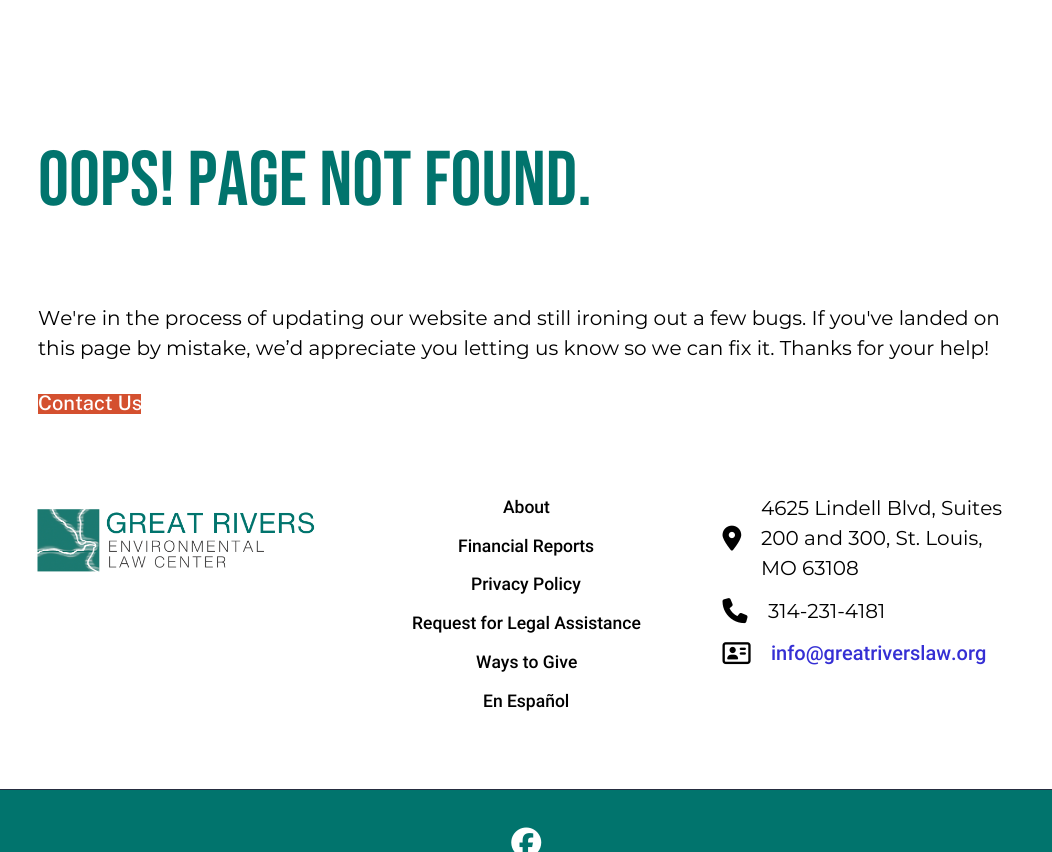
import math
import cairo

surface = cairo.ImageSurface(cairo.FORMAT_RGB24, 1052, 852)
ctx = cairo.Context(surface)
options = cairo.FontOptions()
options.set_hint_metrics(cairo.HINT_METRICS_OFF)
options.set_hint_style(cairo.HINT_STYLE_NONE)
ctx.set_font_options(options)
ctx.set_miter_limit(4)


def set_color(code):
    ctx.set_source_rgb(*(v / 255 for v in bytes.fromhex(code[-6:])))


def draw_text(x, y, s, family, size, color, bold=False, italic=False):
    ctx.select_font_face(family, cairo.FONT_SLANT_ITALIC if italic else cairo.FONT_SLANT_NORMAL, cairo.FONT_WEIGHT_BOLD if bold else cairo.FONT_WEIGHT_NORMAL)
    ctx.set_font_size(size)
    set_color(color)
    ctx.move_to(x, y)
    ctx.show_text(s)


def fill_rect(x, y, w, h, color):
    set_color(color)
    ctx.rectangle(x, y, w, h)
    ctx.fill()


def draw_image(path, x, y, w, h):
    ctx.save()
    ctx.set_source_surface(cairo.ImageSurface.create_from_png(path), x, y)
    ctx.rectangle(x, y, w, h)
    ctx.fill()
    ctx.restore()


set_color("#ffffff")
ctx.paint()
draw_text(38, 205, "OOPS! PAGE NOT FOUND.", "Bebas Neue", 77.5, "#01746d")
draw_text(38, 325, "We're in the process of updating our website and still ironing out a few bugs. If you've landed on", "Montserrat Thin", 20, "#000000")
draw_text(38, 355, "this page by mistake, we’d appreciate you letting us know so we can fix it. Thanks for your help!", "Montserrat Thin", 20, "#000000")
fill_rect(38, 394, 103, 20, "#d4502f")
draw_text(38, 410, "Contact Us", "Public Sans Thin", 20, "#ffffff")
draw_image("assets/img1.png", 37, 509, 278, 63)
draw_text(503, 513, "About", "Roboto Medium", 17.5, "#000000")
draw_text(458, 552, "Financial Reports", "Roboto Medium", 17.5, "#000000")
draw_text(471, 590, "Privacy Policy", "Roboto Medium", 17.5, "#000000")
draw_text(412, 629, "Request for Legal Assistance", "Roboto Medium", 17.5, "#000000")
draw_text(476, 668, "Ways to Give", "Roboto Medium", 17.5, "#000000")
draw_text(483, 707, "En Español", "Roboto Medium", 17.5, "#000000")
draw_image("assets/img2.png", 722, 525, 20, 26)
draw_text(761, 515, "4625 Lindell Blvd, Suites", "Montserrat Thin", 20, "#000000")
draw_text(761, 545, "200 and 300, St. Louis,", "Montserrat Thin", 20, "#000000")
draw_text(761, 575, "MO 63108", "Montserrat Thin", 20, "#000000")
draw_image("assets/img3.png", 722, 598, 26, 26)
draw_text(768, 618, "314-231-4181", "Montserrat Thin", 20, "#000000")
draw_image("assets/img4.png", 722, 642, 29, 23)
draw_text(771, 660, "info@greatriverslaw.org", "Roboto Medium", 20, "#352fd4")
fill_rect(0, 790, 1052, 62, "#01746d")
fill_rect(0, 789, 1052, 1, "#262d40")
draw_image("assets/img5.png", 511, 827, 31, 25)
surface.write_to_png("output.png")
